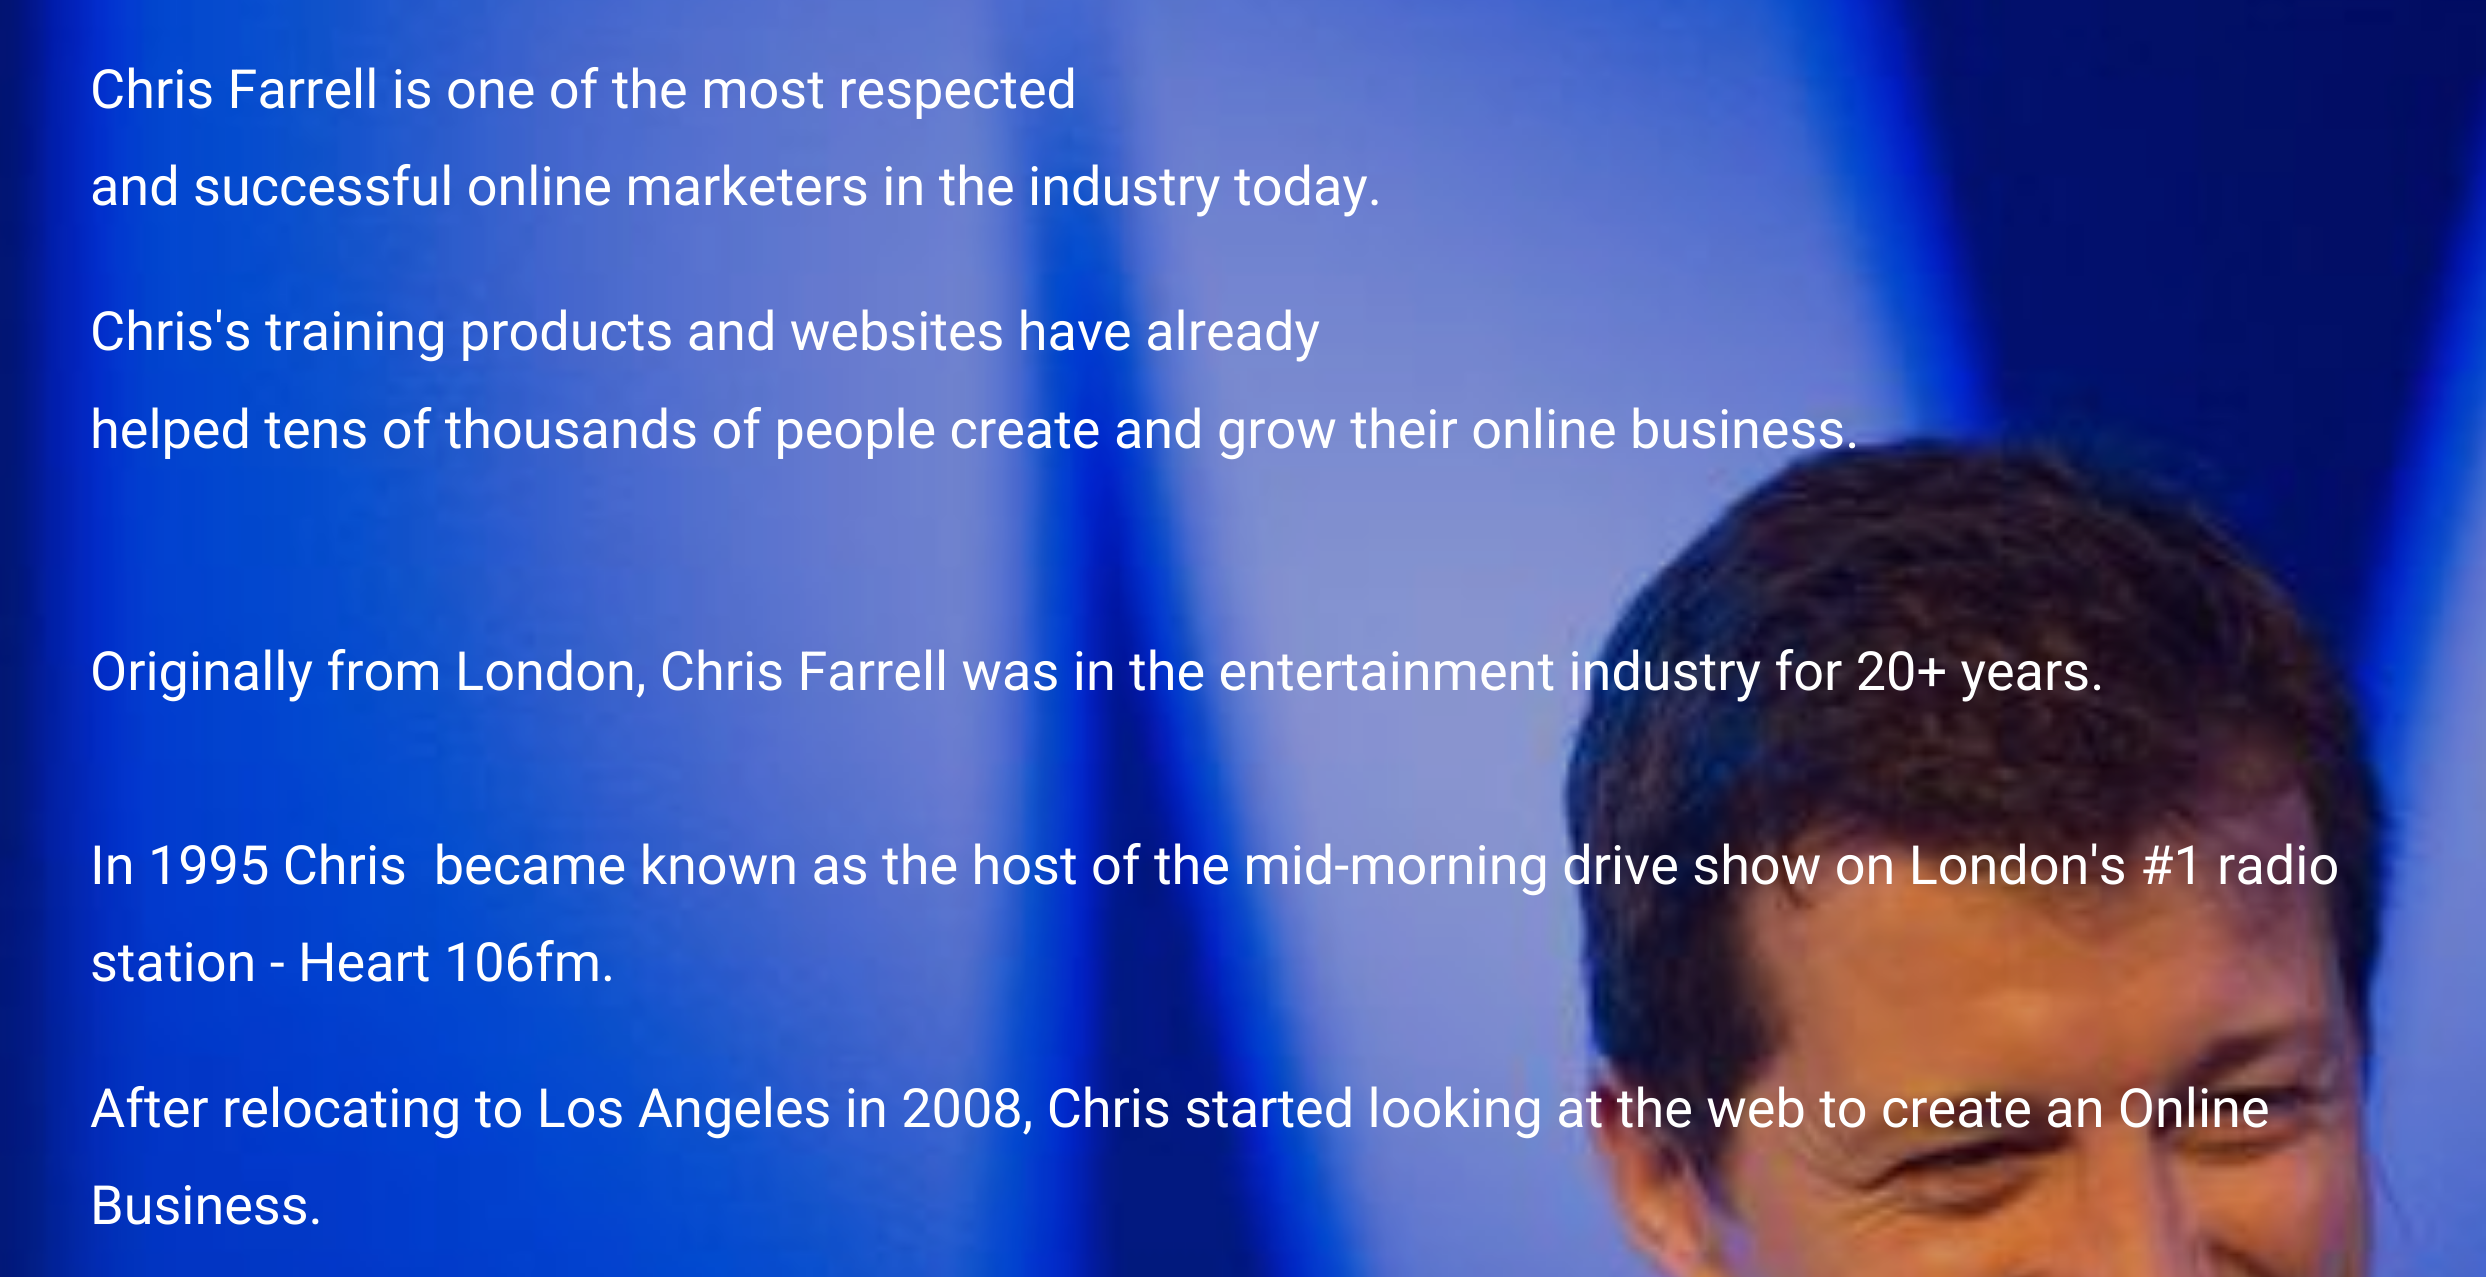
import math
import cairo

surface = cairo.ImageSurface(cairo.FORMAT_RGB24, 2486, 1277)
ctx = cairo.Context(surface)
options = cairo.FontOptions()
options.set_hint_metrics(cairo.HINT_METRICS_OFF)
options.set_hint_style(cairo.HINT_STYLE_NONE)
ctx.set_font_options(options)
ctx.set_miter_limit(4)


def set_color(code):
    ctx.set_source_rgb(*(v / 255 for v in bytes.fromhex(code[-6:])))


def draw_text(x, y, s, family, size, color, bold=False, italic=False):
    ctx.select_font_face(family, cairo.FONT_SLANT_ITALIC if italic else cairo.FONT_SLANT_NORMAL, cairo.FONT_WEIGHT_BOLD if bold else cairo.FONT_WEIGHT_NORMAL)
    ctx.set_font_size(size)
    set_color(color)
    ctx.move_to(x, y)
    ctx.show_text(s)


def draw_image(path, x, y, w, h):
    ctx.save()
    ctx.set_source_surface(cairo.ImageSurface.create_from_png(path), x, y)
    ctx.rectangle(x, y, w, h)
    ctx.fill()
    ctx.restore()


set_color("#ffffff")
ctx.paint()
draw_image("assets/img1.png", 0, 0, 2486, 1277)
draw_text(90, 108, "Chris Farrell is one of the most respected", "Roboto", 54, "#ffffff")
draw_text(90, 205, "and successful online marketers in the industry today.", "Roboto", 54, "#ffffff")
draw_text(90, 350, "Chris's training products and websites have already", "Roboto", 54, "#ffffff")
draw_text(90, 448, "helped tens of thousands of people create and grow their online business.", "Roboto", 54, "#ffffff")
draw_text(90, 690, "Originally from London, Chris Farrell was in the entertainment industry for 20+ years.", "Roboto", 54, "#ffffff")
draw_text(90, 884, "In 1995 Chris  became known as the host of the mid-morning drive show on London's #1 radio", "Roboto", 54, "#ffffff")
draw_text(90, 981, "station - Heart 106fm.", "Roboto", 54, "#ffffff")
draw_text(90, 1127, "After relocating to Los Angeles in 2008, Chris started looking at the web to create an Online", "Roboto", 54, "#ffffff")
draw_text(90, 1224, "Business.", "Roboto", 54, "#ffffff")
surface.write_to_png("output.png")
